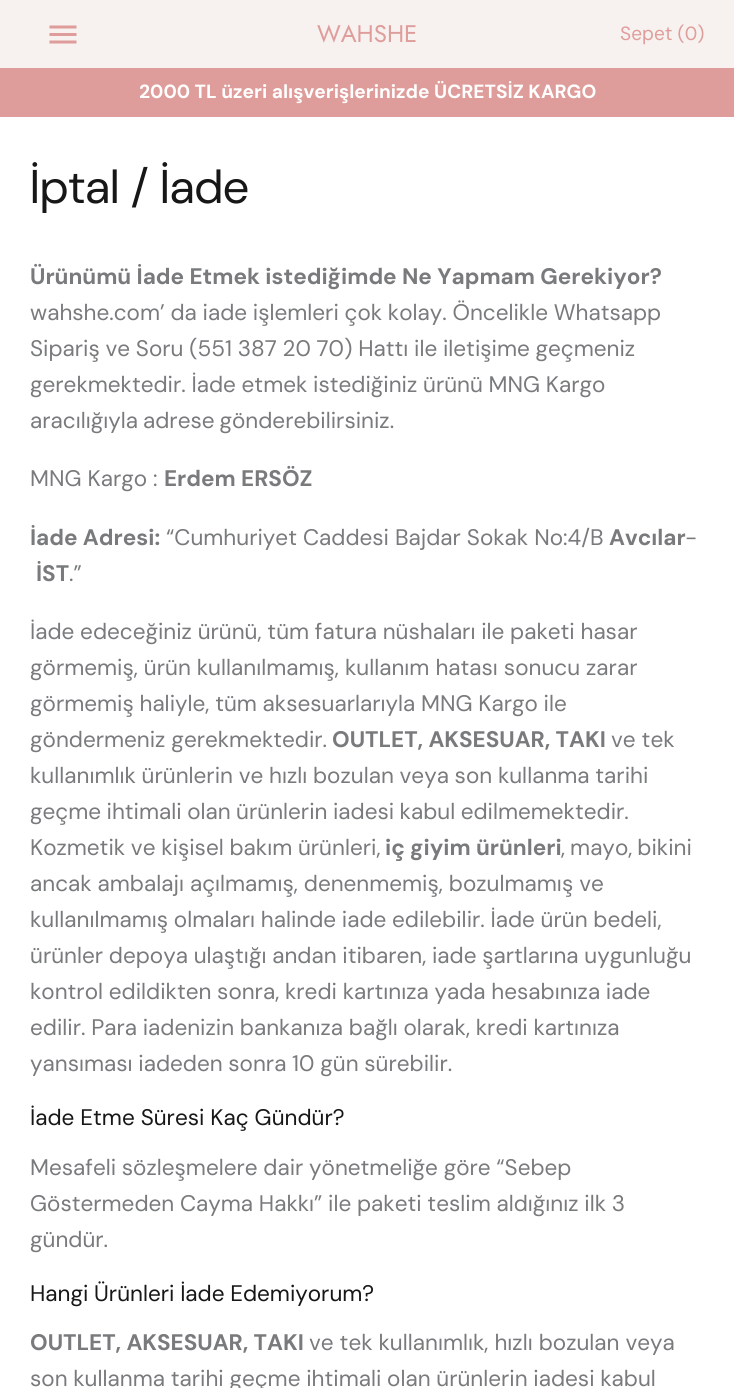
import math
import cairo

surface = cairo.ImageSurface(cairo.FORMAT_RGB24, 734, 1388)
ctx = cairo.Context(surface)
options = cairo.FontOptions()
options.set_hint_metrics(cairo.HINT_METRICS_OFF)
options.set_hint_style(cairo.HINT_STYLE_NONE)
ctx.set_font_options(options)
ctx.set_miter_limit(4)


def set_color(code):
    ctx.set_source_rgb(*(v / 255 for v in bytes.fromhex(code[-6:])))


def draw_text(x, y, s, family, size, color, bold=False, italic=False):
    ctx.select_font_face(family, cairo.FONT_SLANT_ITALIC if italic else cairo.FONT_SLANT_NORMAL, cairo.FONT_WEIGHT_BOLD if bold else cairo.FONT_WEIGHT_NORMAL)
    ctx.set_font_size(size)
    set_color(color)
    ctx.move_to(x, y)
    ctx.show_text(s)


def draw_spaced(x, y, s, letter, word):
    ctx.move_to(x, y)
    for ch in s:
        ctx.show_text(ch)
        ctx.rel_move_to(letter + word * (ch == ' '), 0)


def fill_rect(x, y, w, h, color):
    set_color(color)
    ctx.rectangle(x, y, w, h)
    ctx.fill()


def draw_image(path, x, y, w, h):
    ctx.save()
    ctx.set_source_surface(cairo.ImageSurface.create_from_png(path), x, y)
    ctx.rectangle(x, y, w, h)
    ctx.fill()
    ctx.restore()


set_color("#ffffff")
ctx.paint()
fill_rect(0, 0, 734, 68, "#f7f1f0")
draw_image("assets/img1.png", 49, 25, 28, 19)
draw_text(317, 42, "WAHSHE", "Jost", 24, "#de9d9a")
draw_text(620, 40, "Sepet (0)", "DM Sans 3", 19.1, "#de9d9a")
fill_rect(0, 68, 734, 49, "#de9d9a")
draw_text(139, 98, "2000 TL üzeri alışverişlerinizde ÜCRETSİZ KARGO", "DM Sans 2", 19.1, "#ffffff", bold=True)
draw_text(30, 203, "İptal / İade", "DM Sans", 47.25, "#171717")
draw_text(30, 284, "Ürünümü İade Etmek istediğimde Ne Yapmam Gerekiyor?", "DM Sans", 22.5, "#787a7c", bold=True)
ctx.select_font_face("DM Sans 2")
draw_spaced(30, 320, "wahshe.com’ da iade işlemleri çok kolay. Öncelikle Whatsapp", 0, -0.25)
draw_spaced(30, 356, "Sipariş ve Soru (551 387 20 70) Hattı ile iletişime geçmeniz", 0, -0.25)
draw_spaced(30, 392, "gerekmektedir. İade etmek istediğiniz ürünü MNG Kargo", 0, -0.25)
draw_spaced(30, 428, "aracılığıyla adrese gönderebilirsiniz.", 0, -1)
draw_text(30, 486, "MNG Kargo :", "DM Sans 2", 22.5, "#787a7c")
draw_text(164, 486, "Erdem ERSÖZ", "DM Sans", 22.5, "#787a7c", bold=True)
draw_text(30, 545, "İade Adresi:", "DM Sans", 22.5, "#787a7c", bold=True)
draw_text(166, 545, "“Cumhuriyet Caddesi Bajdar Sokak No:4/B", "DM Sans 2", 22.5, "#787a7c")
draw_text(609, 545, "Avcılar", "DM Sans", 22.5, "#787a7c", bold=True)
draw_text(685, 545, "-", "DM Sans 2", 22.5, "#787a7c")
draw_text(36, 581, "İST", "DM Sans", 22.5, "#787a7c", bold=True)
draw_text(69, 581, ".”", "DM Sans 2", 22.5, "#787a7c")
draw_spaced(30, 639, "İade edeceğiniz ürünü, tüm fatura nüshaları ile paketi hasar", 0, -0.25)
draw_text(30, 675, "görmemiş, ürün kullanılmamış, kullanım hatası sonucu zarar", "DM Sans 2", 22.5, "#787a7c")
draw_spaced(30, 711, "görmemiş haliyle, tüm aksesuarlarıyla MNG Kargo ile", 0, -0.25)
draw_text(30, 747, "göndermeniz gerekmektedir.", "DM Sans 2", 22.5, "#787a7c")
draw_text(332, 747, "OUTLET, AKSESUAR, TAKI", "DM Sans", 22.5, "#787a7c", bold=True)
draw_text(611, 747, "ve tek", "DM Sans 2", 22.5, "#787a7c")
draw_spaced(30, 783, "kullanımlık ürünlerin ve hızlı bozulan veya son kullanma tarihi", 0, -0.25)
draw_spaced(30, 819, "geçme ihtimali olan ürünlerin iadesi kabul edilmemektedir.", 0, -0.5)
draw_spaced(30, 855, "Kozmetik ve kişisel bakım ürünleri,", 0, -0.25)
draw_text(385, 855, "iç giyim ürünleri", "DM Sans", 22.5, "#787a7c", bold=True)
ctx.select_font_face("DM Sans 2")
draw_spaced(561, 855, ", mayo, bikini", 0, -1)
draw_text(30, 891, "ancak ambalajı açılmamış, denenmemiş, bozulmamış ve", "DM Sans 2", 22.5, "#787a7c")
draw_spaced(30, 927, "kullanılmamış olmaları halinde iade edilebilir. İade ürün bedeli,", 0, -0.25)
draw_spaced(30, 963, "ürünler depoya ulaştığı andan itibaren, iade şartlarına uygunluğu", 0, -0.25)
draw_spaced(30, 999, "kontrol edildikten sonra, kredi kartınıza yada hesabınıza iade", 0, -0.25)
draw_spaced(30, 1035, "edilir. Para iadenizin bankanıza bağlı olarak, kredi kartınıza", 0, -0.25)
draw_spaced(30, 1071, "yansıması iadeden sonra 10 gün sürebilir.", 0, -0.25)
draw_text(30, 1125, "İade Etme Süresi Kaç Gündür?", "DM Sans 2", 22.5, "#171717")
set_color("#787a7c")
draw_spaced(30, 1175, "Mesafeli sözleşmelere dair yönetmeliğe göre “Sebep", 0, -0.25)
draw_spaced(30, 1211, "Göstermeden Cayma Hakkı” ile paketi teslim aldığınız ilk 3", 0, -0.25)
draw_text(30, 1247, "gündür.", "DM Sans 2", 22.5, "#787a7c")
set_color("#171717")
draw_spaced(30, 1301, "Hangi Ürünleri İade Edemiyorum?", 0, -0.25)
draw_text(30, 1350, "OUTLET, AKSESUAR, TAKI", "DM Sans", 22.5, "#787a7c", bold=True)
draw_text(309, 1350, "ve tek kullanımlık, hızlı bozulan veya", "DM Sans 2", 22.5, "#787a7c")
draw_spaced(30, 1386, "son kullanma tarihi geçme ihtimali olan ürünlerin iadesi kabul", 0, -0.25)
surface.write_to_png("output.png")
